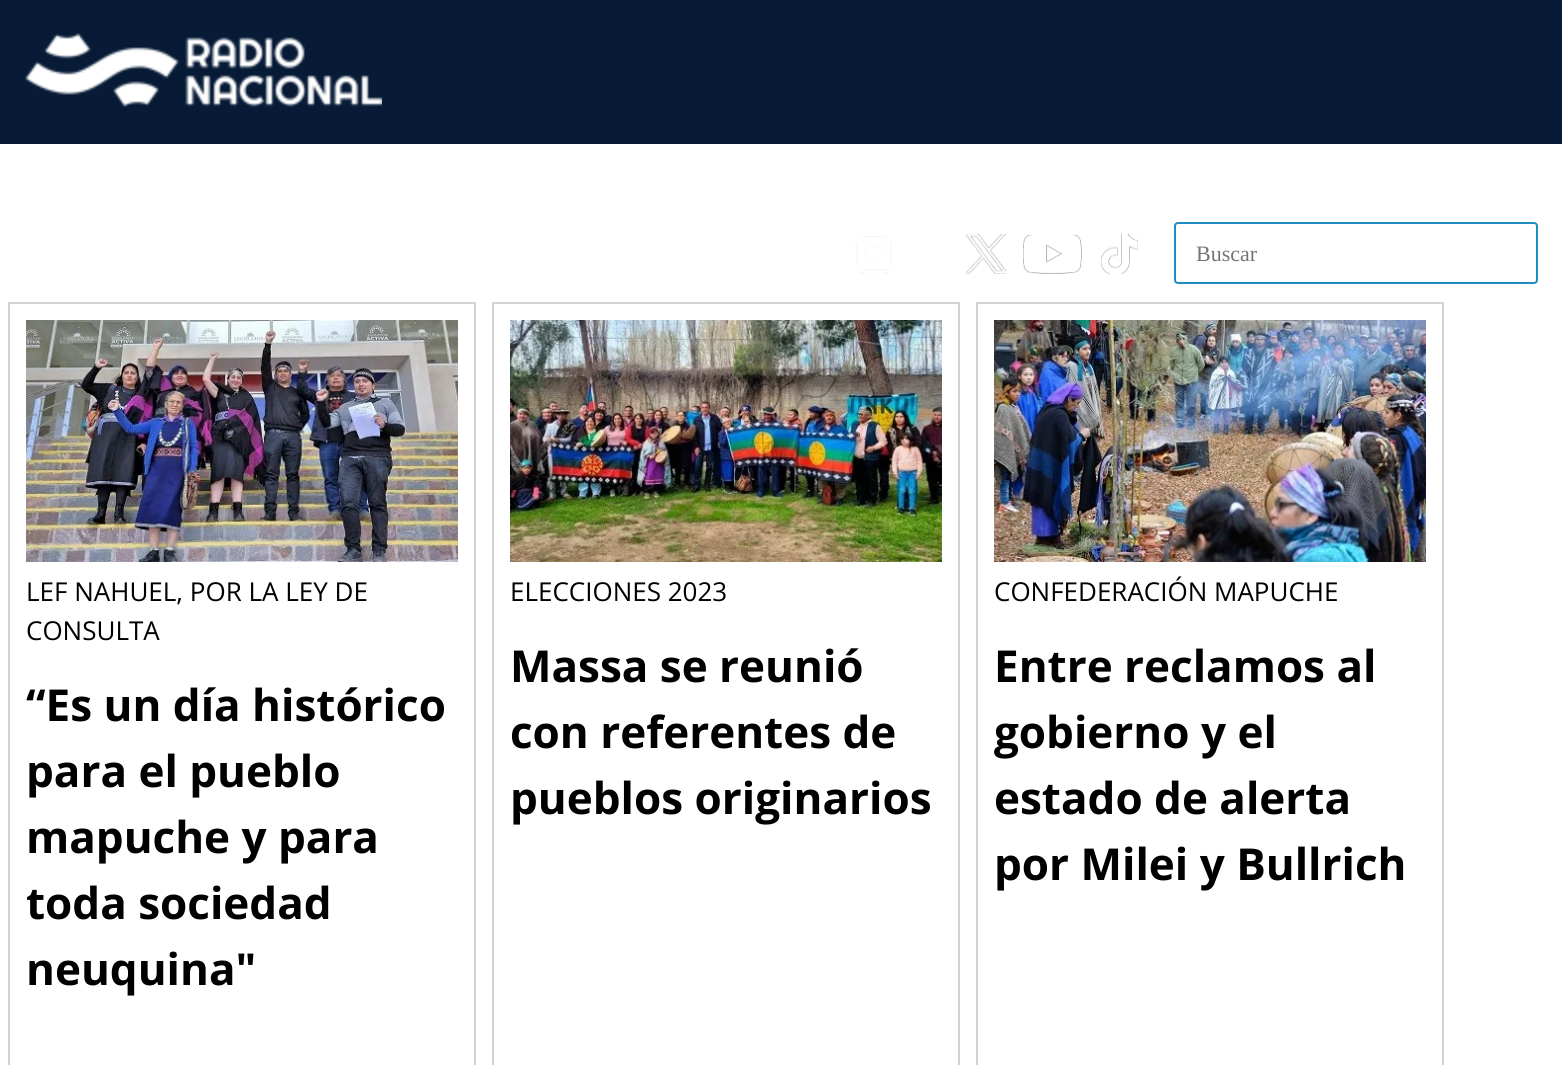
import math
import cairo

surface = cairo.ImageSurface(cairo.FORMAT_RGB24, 1562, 1065)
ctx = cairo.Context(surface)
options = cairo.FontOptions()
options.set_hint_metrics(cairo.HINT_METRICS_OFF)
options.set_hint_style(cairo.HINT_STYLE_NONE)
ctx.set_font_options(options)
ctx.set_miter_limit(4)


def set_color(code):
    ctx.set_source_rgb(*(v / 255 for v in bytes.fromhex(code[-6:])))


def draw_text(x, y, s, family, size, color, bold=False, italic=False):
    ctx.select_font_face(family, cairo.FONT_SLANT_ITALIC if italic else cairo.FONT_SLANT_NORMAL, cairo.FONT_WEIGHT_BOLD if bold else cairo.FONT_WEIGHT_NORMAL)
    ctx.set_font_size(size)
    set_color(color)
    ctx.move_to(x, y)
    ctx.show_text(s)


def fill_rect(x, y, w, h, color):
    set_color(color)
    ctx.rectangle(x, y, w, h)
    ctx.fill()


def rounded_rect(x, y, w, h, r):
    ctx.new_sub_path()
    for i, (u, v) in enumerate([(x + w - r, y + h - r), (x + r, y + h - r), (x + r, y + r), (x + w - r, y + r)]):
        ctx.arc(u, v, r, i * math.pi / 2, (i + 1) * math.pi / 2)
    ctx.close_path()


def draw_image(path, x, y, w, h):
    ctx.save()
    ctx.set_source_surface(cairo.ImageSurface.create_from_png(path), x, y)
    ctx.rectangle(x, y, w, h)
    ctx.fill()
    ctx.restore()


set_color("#ffffff")
ctx.paint()
fill_rect(0, 0, 1562, 144, "#071b36")
draw_image("assets/img1.png", 25, 33, 357, 74)
draw_image("assets/img2.png", 854, 236, 40, 38)
draw_image("assets/img3.png", 966, 234, 40, 40)
draw_image("assets/img4.png", 1023, 234, 59, 40)
draw_image("assets/img5.png", 1101, 234, 37, 40)
rounded_rect(1175, 223, 362, 60, 3)
set_color("#1e8cbe")
ctx.stroke()
set_color("#ffffff")
rounded_rect(1176, 224, 360, 58, 4)
ctx.fill()
draw_text(1196, 261, "Buscar", "Liberation Serif", 22, "#757575")
ctx.rectangle(9, 303, 466, 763)
set_color("#d3d3d3")
ctx.stroke()
draw_image("assets/img6.png", 26, 320, 432, 242)
draw_text(26, 601, "LEF NAHUEL, POR LA LEY DE", "Open Sans", 26, "#000000")
draw_text(26, 640, "CONSULTA", "Open Sans", 26, "#000000")
draw_text(26, 721, "“Es un día histórico", "Open Sans", 44, "#000000", bold=True)
draw_text(26, 787, "para el pueblo", "Open Sans", 44, "#000000", bold=True)
draw_text(26, 853, "mapuche y para", "Open Sans", 44, "#000000", bold=True)
draw_text(26, 919, "toda sociedad", "Open Sans", 44, "#000000", bold=True)
draw_text(26, 985, "neuquina\"", "Open Sans", 44, "#000000", bold=True)
ctx.rectangle(493, 303, 466, 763)
set_color("#d3d3d3")
ctx.stroke()
draw_image("assets/img7.png", 510, 320, 432, 242)
draw_text(510, 601, "ELECCIONES 2023", "Open Sans", 26, "#000000")
draw_text(510, 682, "Massa se reunió", "Open Sans", 44, "#000000", bold=True)
draw_text(510, 748, "con referentes de", "Open Sans", 44, "#000000", bold=True)
draw_text(510, 814, "pueblos originarios", "Open Sans", 44, "#000000", bold=True)
ctx.rectangle(977, 303, 466, 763)
set_color("#d3d3d3")
ctx.stroke()
draw_image("assets/img8.png", 994, 320, 432, 242)
draw_text(994, 601, "CONFEDERACIÓN MAPUCHE", "Open Sans", 26, "#000000")
draw_text(994, 682, "Entre reclamos al", "Open Sans", 44, "#000000", bold=True)
draw_text(994, 748, "gobierno y el", "Open Sans", 44, "#000000", bold=True)
draw_text(994, 814, "estado de alerta", "Open Sans", 44, "#000000", bold=True)
draw_text(994, 880, "por Milei y Bullrich", "Open Sans", 44, "#000000", bold=True)
surface.write_to_png("output.png")
